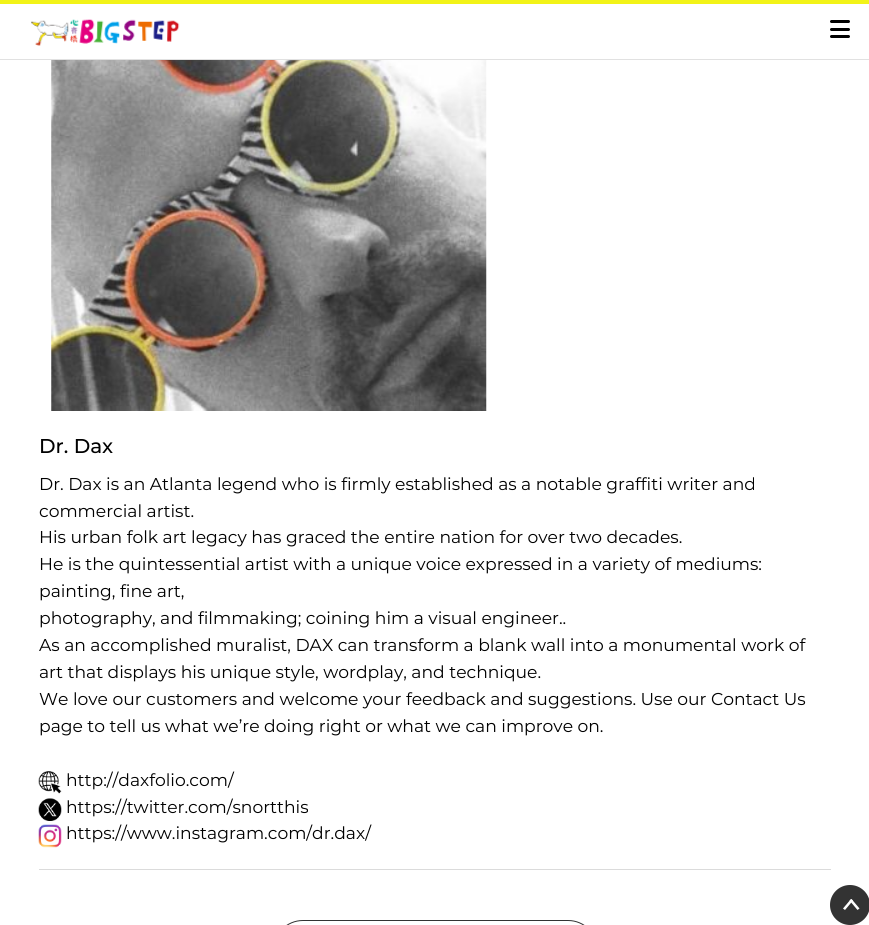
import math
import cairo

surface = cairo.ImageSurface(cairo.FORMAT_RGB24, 869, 925)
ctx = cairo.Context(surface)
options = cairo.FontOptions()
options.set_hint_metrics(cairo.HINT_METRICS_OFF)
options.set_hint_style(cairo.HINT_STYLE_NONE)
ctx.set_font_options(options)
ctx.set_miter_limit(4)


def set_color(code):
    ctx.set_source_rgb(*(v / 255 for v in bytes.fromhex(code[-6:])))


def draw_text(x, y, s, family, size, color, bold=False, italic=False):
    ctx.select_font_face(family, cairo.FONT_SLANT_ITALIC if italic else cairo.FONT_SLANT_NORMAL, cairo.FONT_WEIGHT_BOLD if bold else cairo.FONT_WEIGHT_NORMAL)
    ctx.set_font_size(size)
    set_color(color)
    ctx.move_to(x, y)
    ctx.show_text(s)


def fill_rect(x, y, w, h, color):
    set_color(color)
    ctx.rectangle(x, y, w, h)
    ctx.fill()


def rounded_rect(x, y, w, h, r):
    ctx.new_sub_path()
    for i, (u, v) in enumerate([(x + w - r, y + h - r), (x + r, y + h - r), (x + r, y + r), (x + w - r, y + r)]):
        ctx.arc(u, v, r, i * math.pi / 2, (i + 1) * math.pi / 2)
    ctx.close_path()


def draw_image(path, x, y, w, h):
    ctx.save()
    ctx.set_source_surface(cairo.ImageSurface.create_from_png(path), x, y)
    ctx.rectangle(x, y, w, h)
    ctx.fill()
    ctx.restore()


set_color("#ffffff")
ctx.paint()
fill_rect(0, 0, 869, 4, "#f2f318")
fill_rect(0, 59, 869, 1, "#e1e1e1")
draw_image("assets/img1.png", 31, 19, 149, 27)
set_color("#000000")
rounded_rect(830, 28, 20, 3, 1.5)
ctx.fill()
rounded_rect(830, 20, 20, 3, 1.5)
ctx.fill()
rounded_rect(830, 35, 20, 3, 1.5)
ctx.fill()
draw_image("assets/img2.png", 51, 60, 436, 351)
fill_rect(39, 869, 792, 1, "#dbdbdb")
draw_text(39, 453, "Dr. Dax", "Montserrat Medium", 20, "#000000")
draw_text(39, 490, "Dr. Dax is an Atlanta legend who is firmly established as a notable graffiti writer and", "Montserrat", 17.15, "#000000")
draw_text(39, 517, "commercial artist.", "Montserrat", 17.15, "#000000")
draw_text(39, 543, "His urban folk art legacy has graced the entire nation for over two decades.", "Montserrat", 17.15, "#000000")
draw_text(39, 570, "He is the quintessential artist with a unique voice expressed in a variety of mediums:", "Montserrat", 17.15, "#000000")
draw_text(39, 597, "painting, fine art,", "Montserrat", 17.15, "#000000")
draw_text(39, 624, "photography, and filmmaking; coining him a visual engineer..", "Montserrat", 17.15, "#000000")
draw_text(39, 651, "As an accomplished muralist, DAX can transform a blank wall into a monumental work of", "Montserrat", 17.15, "#000000")
draw_text(39, 678, "art that displays his unique style, wordplay, and technique.", "Montserrat", 17.15, "#000000")
draw_text(39, 705, "We love our customers and welcome your feedback and", "Montserrat", 17.15, "#000000")
draw_text(528, 705, "suggestions. Use our Contact Us", "Montserrat", 17.15, "#000000")
draw_text(39, 732, "page to tell us what we’re doing right or what we can improve on.", "Montserrat", 17.15, "#000000")
draw_image("assets/img3.png", 38, 771, 24, 23)
draw_text(66, 786, "http://daxfolio.com/", "Montserrat", 17.15, "#000000")
draw_image("assets/img4.png", 38, 798, 24, 23)
draw_text(66, 813, "https://twitter.com/snortthis", "Montserrat", 17.15, "#000000")
draw_image("assets/img5.png", 38, 824, 24, 24)
draw_text(66, 839, "https://www.instagram.com/dr.dax/", "Montserrat", 17.15, "#000000")
rounded_rect(273.5, 920.5, 324, 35, 29.5)
set_color("#333333")
ctx.set_line_width(1)
ctx.stroke()
ctx.arc(850, 905, 20, 0, 2 * math.pi)
ctx.fill()
set_color("#ffffff")
ctx.new_path()
ctx.move_to(851.5, 899)
ctx.line_to(859.5, 908.5)
ctx.line_to(857.5, 910)
ctx.line_to(849.5, 900.5)
ctx.close_path()
ctx.fill()
ctx.new_path()
ctx.move_to(843, 908.5)
ctx.line_to(851, 899)
ctx.line_to(853, 900.5)
ctx.line_to(845, 910)
ctx.close_path()
ctx.fill()
surface.write_to_png("output.png")
